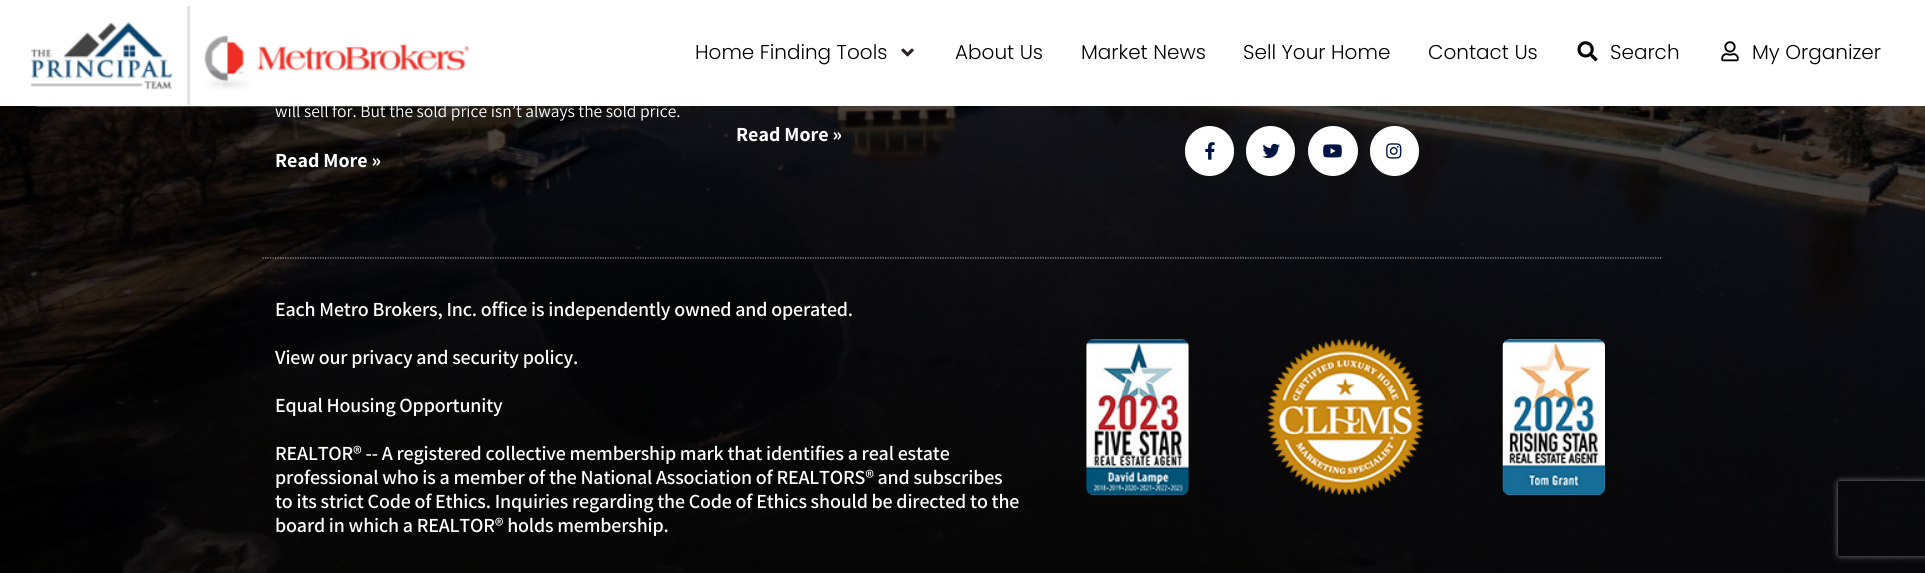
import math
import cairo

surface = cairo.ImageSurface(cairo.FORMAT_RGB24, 1925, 573)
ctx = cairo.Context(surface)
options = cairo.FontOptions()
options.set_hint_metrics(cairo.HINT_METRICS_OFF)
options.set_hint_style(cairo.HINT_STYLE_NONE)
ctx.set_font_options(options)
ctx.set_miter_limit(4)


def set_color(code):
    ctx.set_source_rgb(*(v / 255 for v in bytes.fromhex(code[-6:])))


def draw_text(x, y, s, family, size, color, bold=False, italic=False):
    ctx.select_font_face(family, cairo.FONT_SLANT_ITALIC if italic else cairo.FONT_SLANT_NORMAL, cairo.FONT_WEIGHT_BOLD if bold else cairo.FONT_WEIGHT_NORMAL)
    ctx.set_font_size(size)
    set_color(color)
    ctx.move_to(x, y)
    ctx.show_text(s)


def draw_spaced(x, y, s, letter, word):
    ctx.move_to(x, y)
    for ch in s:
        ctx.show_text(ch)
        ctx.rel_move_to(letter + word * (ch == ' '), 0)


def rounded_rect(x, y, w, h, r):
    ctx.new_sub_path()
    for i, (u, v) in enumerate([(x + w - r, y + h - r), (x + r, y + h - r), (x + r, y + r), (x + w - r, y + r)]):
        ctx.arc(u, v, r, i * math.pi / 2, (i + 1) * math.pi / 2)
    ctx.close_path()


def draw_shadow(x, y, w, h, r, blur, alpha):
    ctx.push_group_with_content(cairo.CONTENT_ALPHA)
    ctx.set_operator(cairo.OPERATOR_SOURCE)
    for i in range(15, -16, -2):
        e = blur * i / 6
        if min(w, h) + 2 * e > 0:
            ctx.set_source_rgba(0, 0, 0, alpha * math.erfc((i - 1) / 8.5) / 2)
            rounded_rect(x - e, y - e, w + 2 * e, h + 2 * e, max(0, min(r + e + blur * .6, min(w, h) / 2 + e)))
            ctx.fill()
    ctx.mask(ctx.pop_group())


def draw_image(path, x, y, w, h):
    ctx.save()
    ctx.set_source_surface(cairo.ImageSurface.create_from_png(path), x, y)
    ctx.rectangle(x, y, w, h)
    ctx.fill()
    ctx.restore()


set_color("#ffffff")
ctx.paint()
draw_image("assets/img5.png", 0, 106, 1925, 467)
draw_text(275, 117, "will sell for. But the sold price isn’t always the sold price.", "Assistant", 17.5, "#ffffff")
draw_image("assets/img1.png", 31, 6, 439, 101)
draw_text(695, 59, "Home Finding Tools", "Poppins Light", 20, "#000000")
draw_image("assets/img2.png", 901, 48, 13, 9)
draw_text(955, 59, "About Us", "Poppins Light", 20, "#000000")
draw_text(1081, 59, "Market News", "Poppins Light", 20, "#000000")
draw_text(1243, 59, "Sell Your Home", "Poppins Light", 20, "#000000")
draw_text(1428, 59, "Contact Us", "Poppins Light", 20, "#000000")
draw_image("assets/img3.png", 1577, 41, 21, 21)
draw_text(1610, 59, "Search", "Poppins Light", 20, "#000000")
draw_image("assets/img4.png", 1721, 41, 18, 21)
draw_text(1752, 59, "My Organizer", "Poppins Light", 20, "#000000")
draw_text(275, 167, "Read More »", "Assistant", 20, "#ffffff", bold=True)
draw_text(736, 141, "Read More »", "Assistant", 20, "#ffffff", bold=True)
rounded_rect(1185, 126, 49, 50, 24.5)
ctx.fill()
draw_image("assets/img6.png", 1205, 142, 10, 18)
rounded_rect(1246, 126, 49, 50, 24.5)
ctx.fill()
draw_image("assets/img7.png", 1262, 143, 18, 15)
ctx.arc(1333, 151, 25, 0, 2 * math.pi)
ctx.fill()
draw_image("assets/img8.png", 1323, 144, 19, 14)
rounded_rect(1370, 126, 49, 50, 24.5)
ctx.fill()
draw_image("assets/img9.png", 1386, 143, 16, 16)
ctx.new_path()
ctx.move_to(262.5, 258)
ctx.line_to(1662.5, 258)
ctx.set_source_rgba(1, 1, 1, 0.59)
ctx.set_line_width(1.2)
ctx.set_dash([1.25, 1.25])
ctx.stroke()
ctx.select_font_face("Assistant SemiBold")
set_color("#ffffff")
draw_spaced(275, 316, "Each Metro Brokers, Inc. office is independently owned and operated.", -0.15, 0)
draw_spaced(275, 364, "View our privacy and security policy.", -0.15, 0)
draw_spaced(275, 412, "Equal Housing Opportunity", -0.15, 0)
draw_spaced(275, 460, "REALTOR® -- A registered collective membership mark that identifies a real estate", -0.15, 0)
draw_spaced(275, 484, "professional who is a member of the National Association of REALTORS® and subscribes", -0.15, 0)
draw_spaced(275, 508, "to its strict Code of Ethics. Inquiries regarding the Code of Ethics should be directed to the", -0.15, 0)
draw_spaced(275, 532, "board in which a REALTOR® holds membership.", -0.15, 0)
draw_image("assets/img10.png", 1086, 339, 103, 157)
draw_image("assets/img11.png", 1267, 339, 157, 157)
draw_image("assets/img12.png", 1502, 339, 103, 157)
ctx.save()
ctx.set_fill_rule(cairo.FILL_RULE_EVEN_ODD)
ctx.new_path()
ctx.move_to(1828, 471)
ctx.line_to(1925, 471)
ctx.line_to(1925, 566)
ctx.line_to(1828, 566)
ctx.close_path()
ctx.move_to(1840.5, 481)
ctx.line_to(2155.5, 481)
ctx.curve_to(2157, 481, 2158, 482, 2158, 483.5)
ctx.line_to(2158, 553.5)
ctx.curve_to(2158, 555, 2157, 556, 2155.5, 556)
ctx.line_to(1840.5, 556)
ctx.curve_to(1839, 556, 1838, 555, 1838, 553.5)
ctx.line_to(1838, 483.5)
ctx.curve_to(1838, 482, 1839, 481, 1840.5, 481)
ctx.close_path()
ctx.clip()
set_color("#808080")
draw_shadow(1838, 481, 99, 75, 2.5, 3, 1)
ctx.restore()
surface.write_to_png("output.png")
